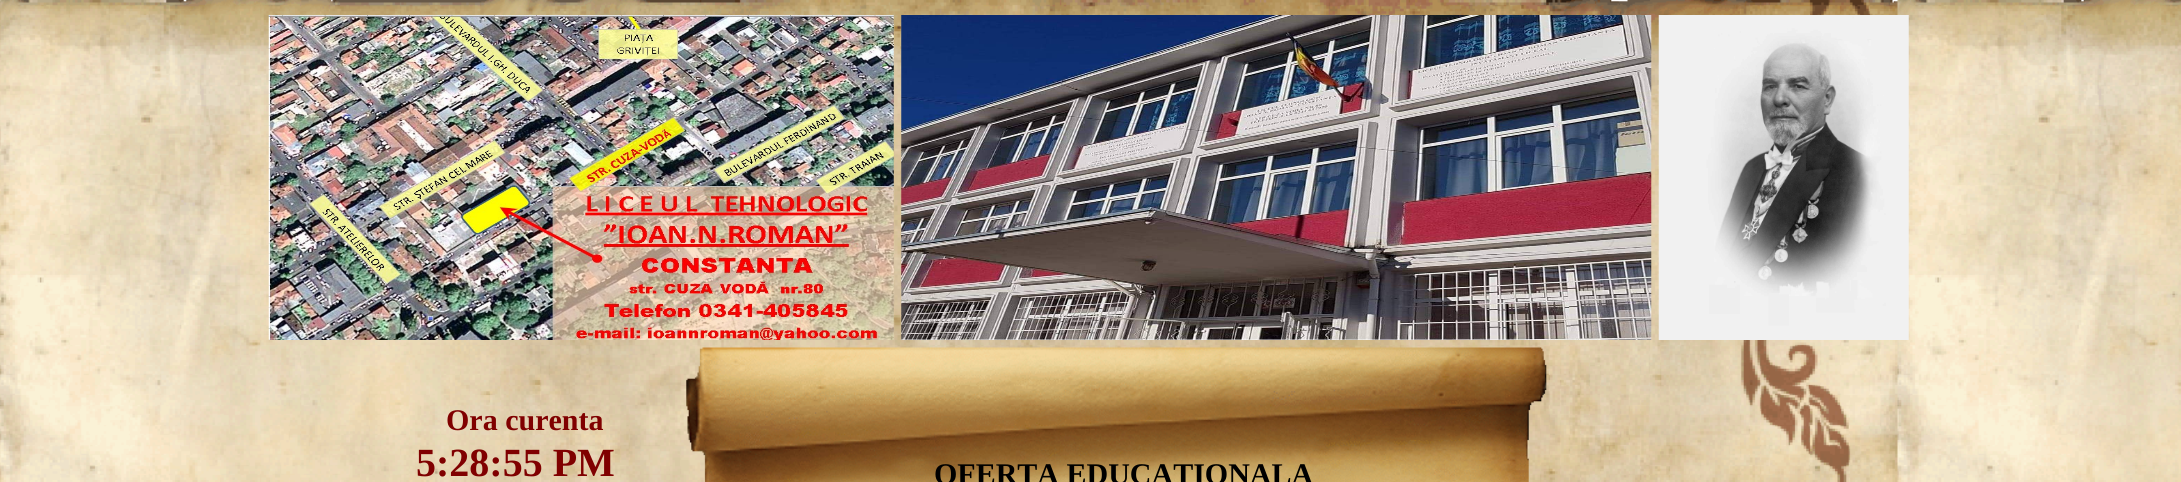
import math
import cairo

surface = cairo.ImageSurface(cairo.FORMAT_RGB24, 2181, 482)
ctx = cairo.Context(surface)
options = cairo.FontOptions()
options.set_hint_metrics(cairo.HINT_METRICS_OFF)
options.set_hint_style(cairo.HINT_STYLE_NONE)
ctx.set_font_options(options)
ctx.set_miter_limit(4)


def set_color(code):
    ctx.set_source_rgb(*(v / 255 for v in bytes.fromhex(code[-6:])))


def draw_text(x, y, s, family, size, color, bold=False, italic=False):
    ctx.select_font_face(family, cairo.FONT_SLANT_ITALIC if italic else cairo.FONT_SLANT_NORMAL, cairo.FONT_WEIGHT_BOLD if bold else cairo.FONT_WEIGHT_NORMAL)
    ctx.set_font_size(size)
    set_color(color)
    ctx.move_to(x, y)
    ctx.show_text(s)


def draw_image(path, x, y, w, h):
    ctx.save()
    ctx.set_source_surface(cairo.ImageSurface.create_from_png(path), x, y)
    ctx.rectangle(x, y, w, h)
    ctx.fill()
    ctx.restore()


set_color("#ffffff")
ctx.paint()
draw_image("assets/img1.png", 0, 0, 2181, 482)
draw_image("assets/img2.png", 268, 15, 626, 325)
draw_image("assets/img3.png", 901, 15, 751, 325)
draw_image("assets/img4.png", 1658, 15, 251, 325)
draw_text(446, 430, "Ora curenta", "Liberation Serif", 30, "#800000", bold=True)
draw_text(416, 476, "5:28:55 PM", "Liberation Serif", 40, "#800000", bold=True)
draw_image("assets/img5.png", 686, 347, 861, 135)
draw_text(934, 484, "OFERTA EDUCATIONALA", "Liberation Serif", 30, "#000000", bold=True)
surface.write_to_png("output.png")
